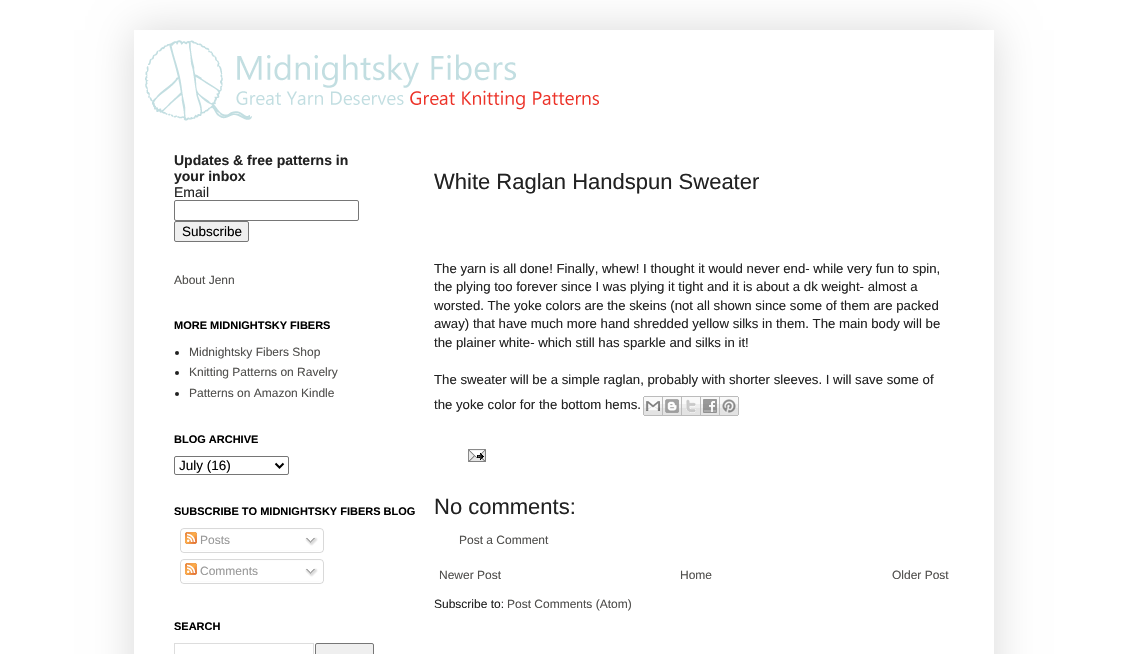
void draw(SkCanvas* c) {
SkPaint p;
p.setAntiAlias(true);
auto F=[&](const char* family, int weight, float size, bool italic = false){SkFontStyle style(weight, SkFontStyle::kNormal_Width,italic ? SkFontStyle::kItalic_Slant : SkFontStyle::kUpright_Slant);SkFont result(fontMgr->matchFamilyStyle(family, style), size);result.setSubpixel(true);return result;};
auto T=[&](const char* s, float x, float y, const SkFont& font){c->drawString(s, x, y, font, p);};
auto I=[&](const char* path, float x, float y, float w, float h){auto image = SkImages::DeferredFromEncodedData(SkData::MakeFromFileName(path));c->drawImageRect(image, SkRect::MakeXYWH(x, y, w, h), SkSamplingOptions());};
auto P=[&](const char* data, bool evenOdd = false){SkPath result = *SkParsePath::FromSVGString(data);if (evenOdd) result.setFillType(SkPathFillType::kEvenOdd);return result;};
c->clear(0xffffffff);
c->save();
c->clipPath(P("M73 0h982v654h-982zm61 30h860v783h-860z",true),true);
p.setColor(0x26000000);
p.setMaskFilter(SkMaskFilter::MakeBlur(kNormal_SkBlurStyle, 20));
c->drawRect(SkRect::MakeXYWH(134,30,860,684),p);
p.setMaskFilter(nullptr);
c->restore();
I("1.png",145,40,454,81);
auto f1 = F("Liberation Sans",700,14);
p.setColor(0xff222222);
T("Updates & free patterns in",174,165,f1);
T("your inbox",174,181,f1);
auto f2 = F("Liberation Sans",400,14);
T("Email",174,197,f2);
p.setStroke(true);
p.setStrokeWidth(1);
p.setColor(0xff767676);
c->drawRoundRect(SkRect::MakeXYWH(174.5,200.5,184,20),1.5,1.5,p);
p.setStroke(false);
p.setColor(0xffefefef);
c->drawRoundRect(SkRect::MakeXYWH(174.5,221.5,74,20),1.5,1.5,p);
p.setStroke(true);
p.setColor(0xff767676);
c->drawRoundRect(SkRect::MakeXYWH(174.5,221.5,74,20),1.5,1.5,p);
auto f3 = F("Liberation Sans",400,13.5);
p.setStroke(false);
p.setColor(0xff000000);
T("Subscribe",182,236,f3);
auto f4 = F("Liberation Sans",400,12);
p.setColor(0xff504f4d);
T("About Jenn",174,284,f4);
auto f5 = F("Liberation Sans",700,11);
p.setColor(0xff000000);
T("MORE MIDNIGHTSKY FIBERS",174,329,f5);
p.setColor(0xff222222);
c->drawCircle(177,353,2,p);
p.setColor(0xff504f4d);
T("Midnightsky Fibers Shop",189,356,f4);
p.setColor(0xff222222);
c->drawCircle(177,373,2,p);
p.setColor(0xff504f4d);
T("Knitting Patterns on Ravelry",189,376,f4);
p.setColor(0xff222222);
c->drawCircle(177,394,2,p);
p.setColor(0xff504f4d);
T("Patterns on Amazon Kindle",189,397,f4);
p.setColor(0xff000000);
T("BLOG ARCHIVE",174,443,f5);
p.setStroke(true);
p.setColor(0xff767676);
c->drawRoundRect(SkRect::MakeXYWH(174.5,456.5,114,18),1.5,1.5,p);
p.setStrokeWidth(2);
p.setColor(0xff000000);
c->drawPath(P("M275.5 463.5l4 4l4-4"),p);
p.setStroke(false);
T("July (16)",179,470,f3);
T("SUBSCRIBE TO MIDNIGHTSKY FIBERS BLOG",174,515,f5);
I("2.png",180,528,144,22);
I("3.png",185,532,12,12);
p.setColor(0xff999999);
T("Posts",200,544,f4);
I("4.png",305,537,13,9);
I("5.png",180,550,144,3);
I("2.png",180,559,144,22);
I("3.png",185,563,12,12);
T("Comments",200,575,f4);
I("4.png",305,568,13,9);
I("5.png",180,581,144,3);
p.setColor(0xff000000);
T("SEARCH",174,630,f5);
p.setStroke(true);
p.setStrokeWidth(1);
p.setColor(0xffdddddd);
c->drawRect(SkRect::MakeXYWH(174.5,643.5,139,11),p);
p.setStroke(false);
p.setColor(0xffefefef);
c->drawRoundRect(SkRect::MakeXYWH(315.5,643.5,58,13),1.5,1.5,p);
p.setStroke(true);
p.setColor(0xff767676);
c->drawRoundRect(SkRect::MakeXYWH(315.5,643.5,58,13),1.5,1.5,p);
auto f6 = F("Liberation Sans",400,22);
p.setStroke(false);
p.setColor(0xff222222);
T("White Raglan Handspun Sweater",434,189,f6);
auto f7 = F("Liberation Sans",400,13.2);
T("The yarn is all done! Finally, whew! I thought it would never end- while very fun to spin,",434,273,f7);
T("the plying too forever since I was plying it tight and it is about a dk weight- almost a",434,291,f7);
T("worsted. The yoke colors are the skeins (not all shown since some of them are packed",434,310,f7);
T("away) that have much more hand shredded yellow silks in them. The main body will be",434,328,f7);
T("the plainer white- which still has sparkle and silks in it!",434,347,f7);
T("The sweater will be a simple raglan, probably with shorter sleeves. I will save some of",434,384,f7);
T("the yoke color for the bottom hems.",434,409,f7);
I("6.png",643,396,20,20);
I("7.png",663,396,19,20);
I("8.png",682,396,19,20);
I("9.png",701,396,19,20);
I("10.png",720,396,19,20);
I("11.png",468,449,18,13);
T("No comments:",434,514,f6);
p.setColor(0xff504f4d);
T("Post a Comment",459,544,f4);
T("Newer Post",439,579,f4);
T("Home",680,579,f4);
T("Older Post",892,579,f4);
p.setColor(0xff222222);
T("Subscribe to:",434,608,f4);
p.setColor(0xff504f4d);
T("Post Comments (Atom)",507,608,f4);
}
